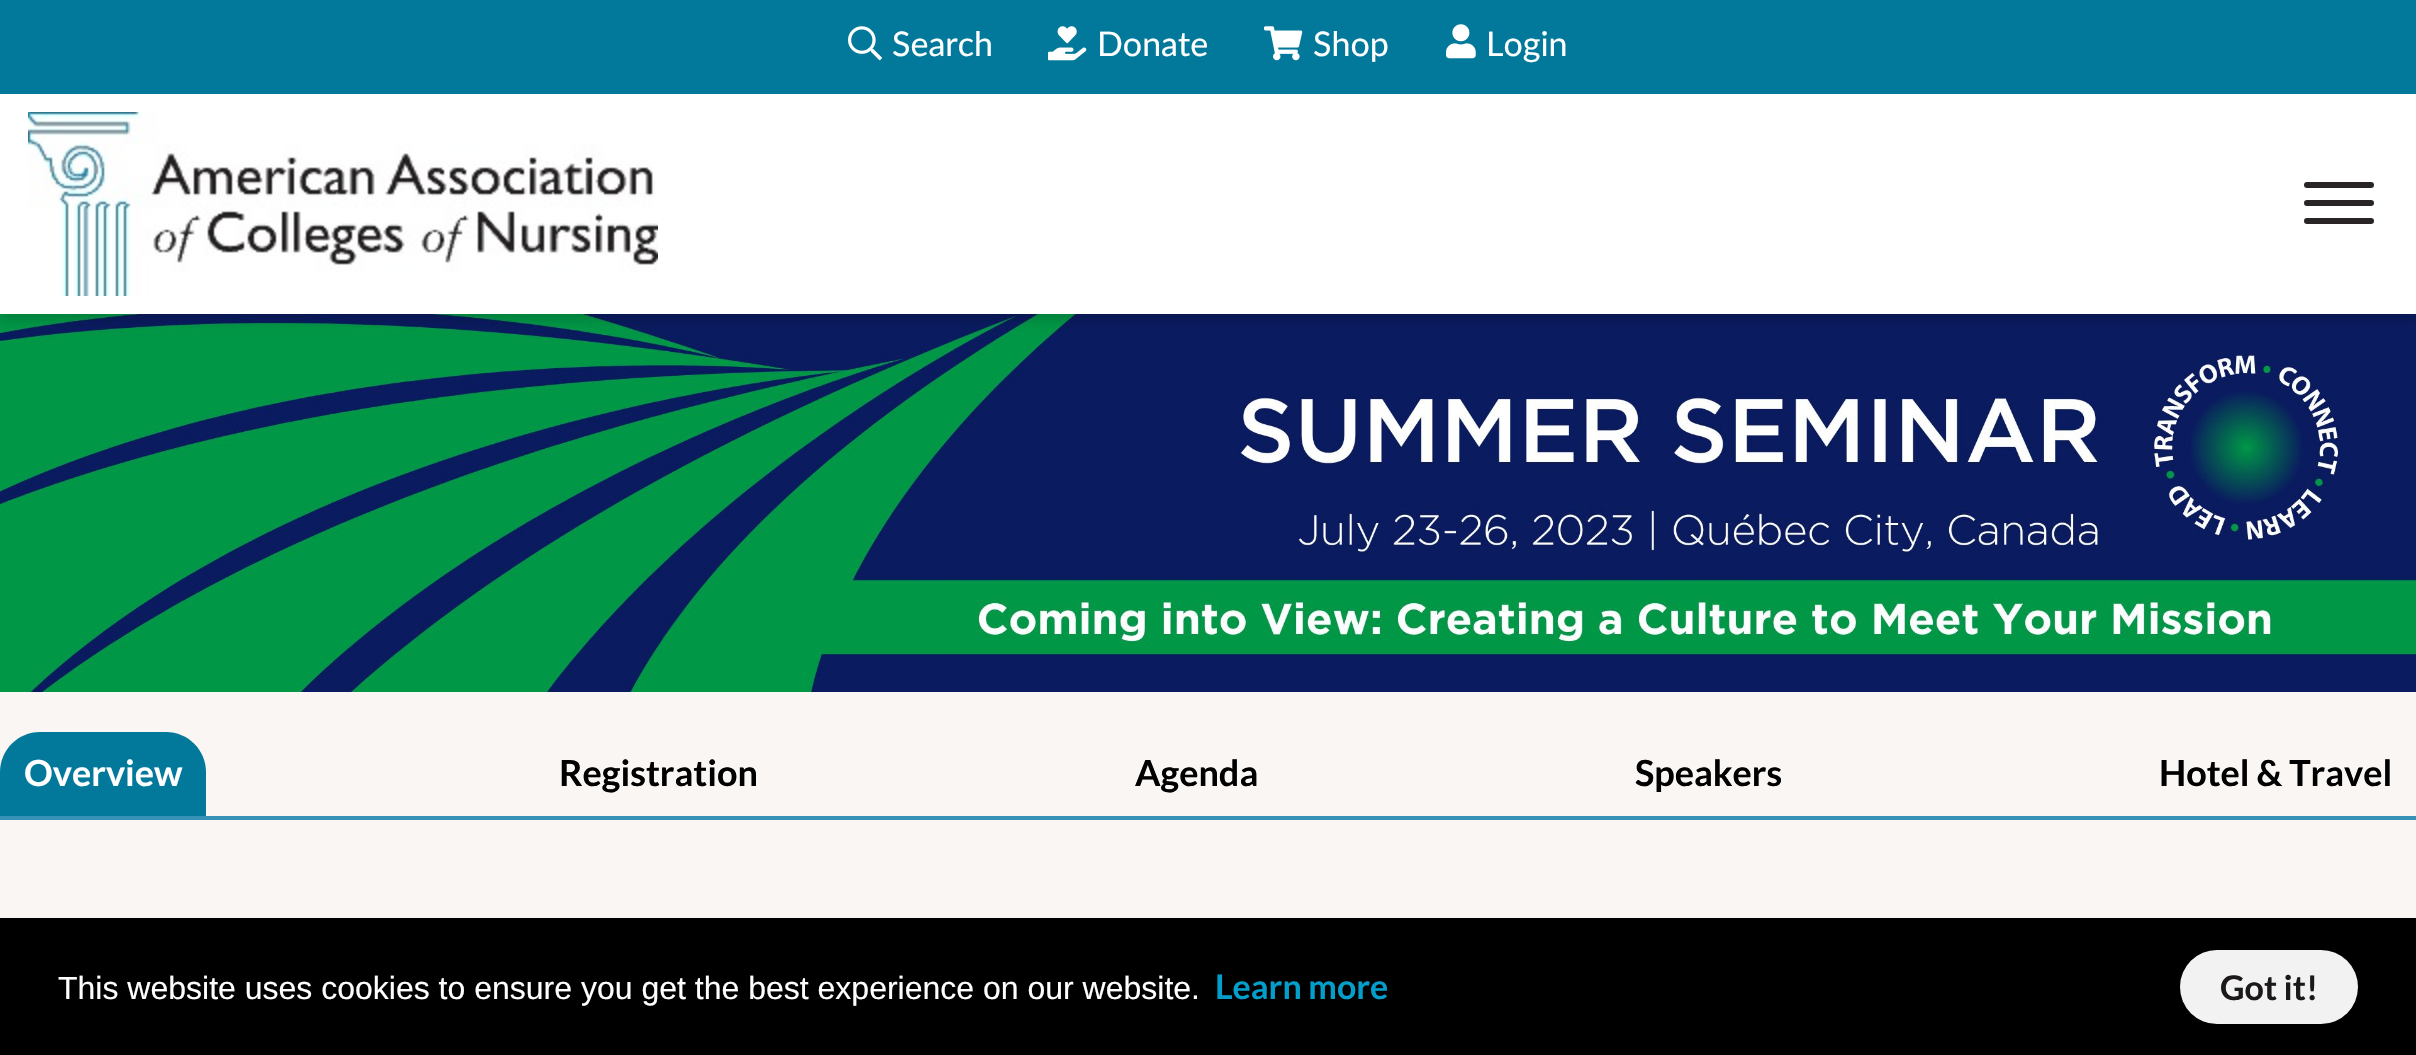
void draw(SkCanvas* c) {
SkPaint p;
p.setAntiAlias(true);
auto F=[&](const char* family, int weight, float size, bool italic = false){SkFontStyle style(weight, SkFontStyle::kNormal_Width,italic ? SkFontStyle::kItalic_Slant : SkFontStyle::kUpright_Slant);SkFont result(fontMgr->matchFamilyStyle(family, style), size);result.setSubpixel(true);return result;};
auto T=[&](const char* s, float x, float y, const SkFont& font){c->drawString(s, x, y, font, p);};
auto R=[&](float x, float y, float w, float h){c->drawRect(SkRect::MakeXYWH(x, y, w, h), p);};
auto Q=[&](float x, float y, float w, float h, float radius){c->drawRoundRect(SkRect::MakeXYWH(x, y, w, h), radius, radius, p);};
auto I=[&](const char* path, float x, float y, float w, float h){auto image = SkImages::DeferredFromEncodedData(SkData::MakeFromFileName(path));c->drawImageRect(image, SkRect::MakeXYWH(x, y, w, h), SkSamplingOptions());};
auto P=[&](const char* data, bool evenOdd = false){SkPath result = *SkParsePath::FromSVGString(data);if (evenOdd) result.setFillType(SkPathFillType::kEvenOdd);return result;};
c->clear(0xfff9f6f4);
I("6.png",0,314,2416,378);
p.setColor(0x29000000);
p.setMaskFilter(SkMaskFilter::MakeBlur(kNormal_SkBlurStyle, 6));
c->drawRect(SkRect::MakeXYWH(0,6,2416,314),p);
p.setMaskFilter(nullptr);
p.setColor(0xffffffff);
R(0,94,2416,220);
p.setColor(0xff02799a);
R(0,0,2416,94);
I("1.png",848,26,34,35);
auto f1 = F("Lato",400,34);
p.setColor(0xffffffff);
T("Search",892,56,f1);
I("2.png",1048,26,39,35);
T("Donate",1097,56,f1);
I("3.png",1264,26,39,35);
T("Shop",1313,56,f1);
I("4.png",1446,24,30,35);
T("Login",1486,56,f1);
I("5.png",28,112,630,184);
p.setColor(0xff292426);
Q(2304,200,70,6,3);
Q(2304,182,70,6,3);
Q(2304,218,70,6,3);
p.setColor(0xff3892b5);
R(0,816,2416,4);
p.setColor(0xff02799a);
c->drawPath(P("M40 732h126c22 0 40 18 40 40v44h-206v-44c0-22 18-40 40-40z"),p);
auto f2 = F("Lato",700,36);
p.setColor(0xffffffff);
T("Overview",24,786,f2);
p.setColor(0xff000000);
T("Registration",559,786,f2);
T("Agenda",1135,786,f2);
T("Speakers",1635,786,f2);
T("Hotel & Travel",2159,786,f2);
R(0,918,2416,137);
auto f3 = F("Liberation Sans",400,32);
p.setColor(0xffffffff);
T("This website uses cookies to ensure you get the best experience on our website.",58,999,f3);
auto f4 = F("Lato",700,34);
p.setColor(0xff039ec9);
T("Learn more",1215,999,f4);
p.setColor(0xfff2f2f2);
Q(2180,950,178,74,37);
p.setColor(0xff1c191a);
T("Got it!",2220,1000,f4);
}
